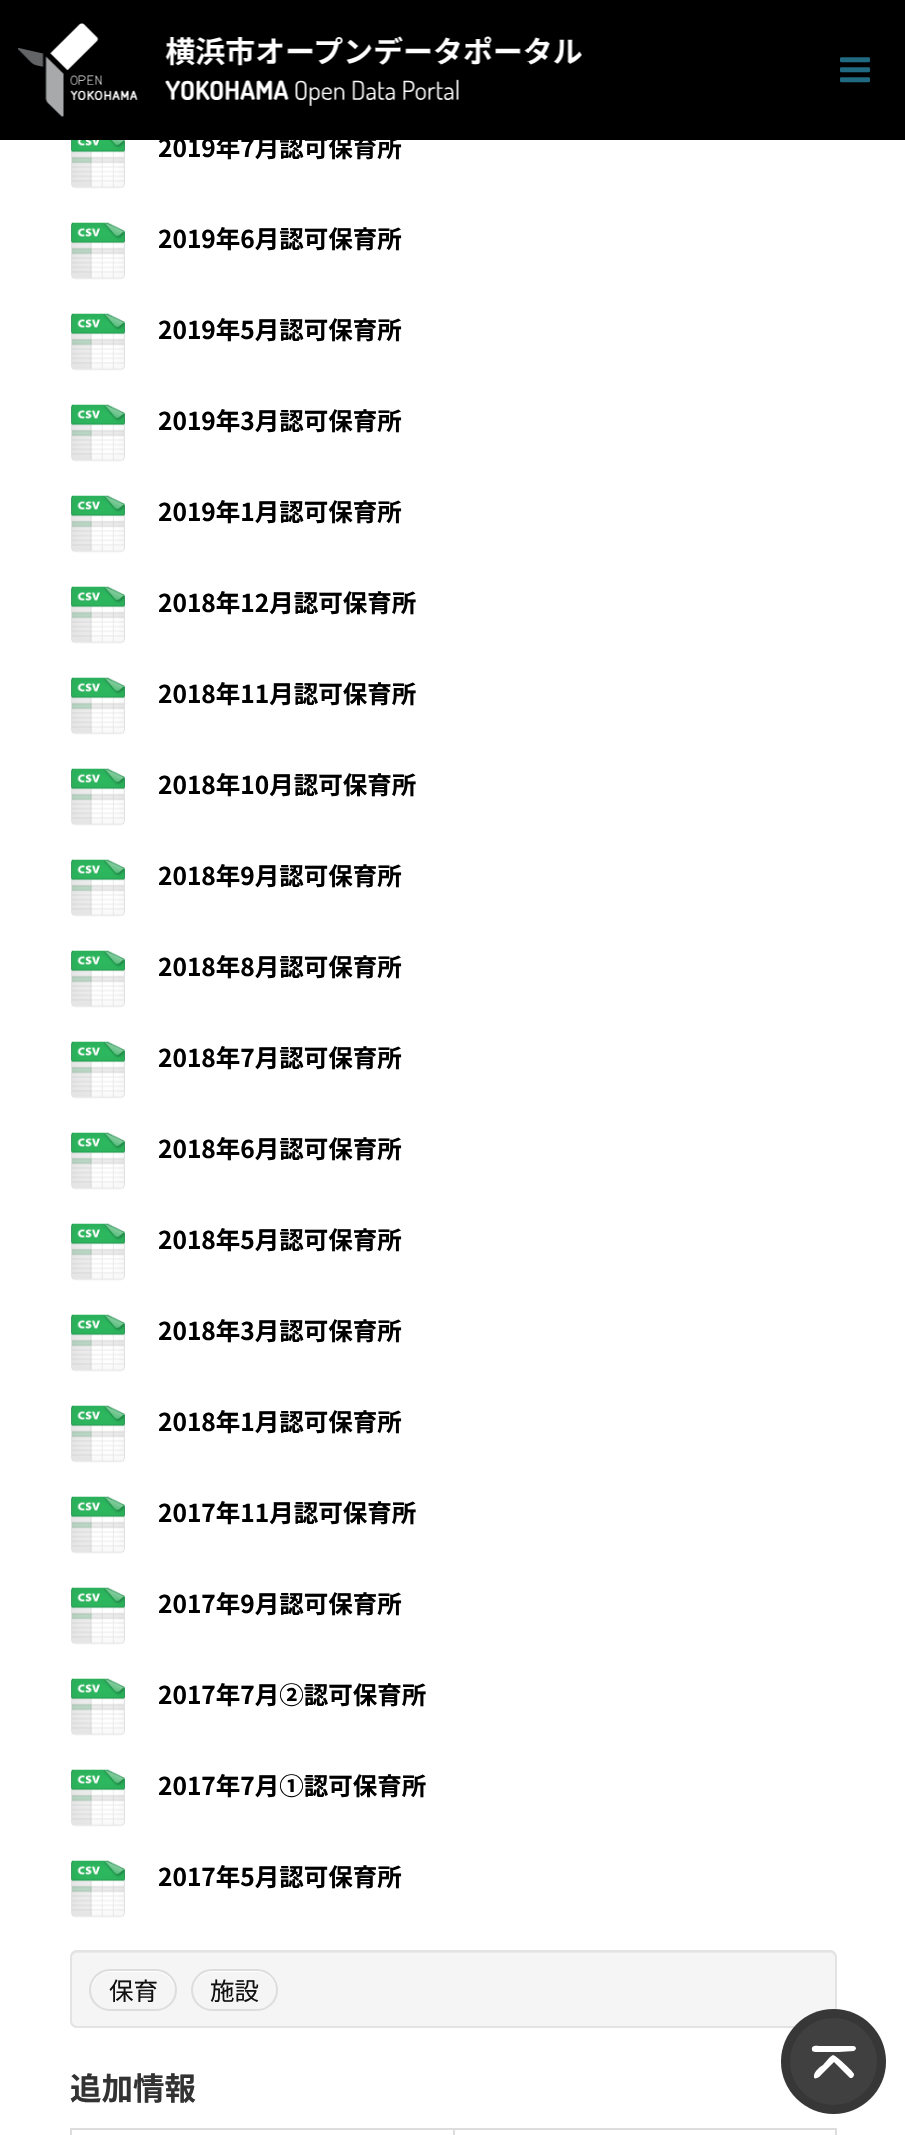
void draw(SkCanvas* c) {
SkPaint p;
p.setAntiAlias(true);
auto F=[&](const char* family, int weight, float size, bool italic = false){SkFontStyle style(weight, SkFontStyle::kNormal_Width,italic ? SkFontStyle::kItalic_Slant : SkFontStyle::kUpright_Slant);SkFont result(fontMgr->matchFamilyStyle(family, style), size);result.setSubpixel(true);return result;};
auto T=[&](const char* s, float x, float y, const SkFont& font){c->drawString(s, x, y, font, p);};
auto R=[&](float x, float y, float w, float h){c->drawRect(SkRect::MakeXYWH(x, y, w, h), p);};
auto Q=[&](float x, float y, float w, float h, float radius){c->drawRoundRect(SkRect::MakeXYWH(x, y, w, h), radius, radius, p);};
auto I=[&](const char* path, float x, float y, float w, float h){auto image = SkImages::DeferredFromEncodedData(SkData::MakeFromFileName(path));c->drawImageRect(image, SkRect::MakeXYWH(x, y, w, h), SkSamplingOptions());};
auto P=[&](const char* data, bool evenOdd = false){SkPath result = *SkParsePath::FromSVGString(data);if (evenOdd) result.setFillType(SkPathFillType::kEvenOdd);return result;};
c->clear(0xffffffff);
p.setColor(0xff000000);
R(0,0,905,140);
I("1.png",18,23,564,94);
I("2.png",840,57,30,26);
I("3.png",71,140,54,49);
auto f1 = F("Noto Sans JP",700,24.5);
T("2019年7月認可保育所",158,157,f1);
I("4.png",71,222,54,58);
T("2019年6月認可保育所",158,248,f1);
I("4.png",71,313,54,58);
T("2019年5月認可保育所",158,339,f1);
I("4.png",71,404,54,58);
T("2019年3月認可保育所",158,430,f1);
I("4.png",71,495,54,58);
T("2019年1月認可保育所",158,521,f1);
I("4.png",71,586,54,58);
T("2018年12月認可保育所",158,612,f1);
I("4.png",71,677,54,58);
T("2018年11月認可保育所",158,703,f1);
I("4.png",71,768,54,58);
T("2018年10月認可保育所",158,794,f1);
I("4.png",71,859,54,58);
T("2018年9月認可保育所",158,885,f1);
I("4.png",71,950,54,58);
T("2018年8月認可保育所",158,976,f1);
I("4.png",71,1041,54,58);
T("2018年7月認可保育所",158,1067,f1);
I("4.png",71,1132,54,58);
T("2018年6月認可保育所",158,1158,f1);
I("4.png",71,1223,54,58);
T("2018年5月認可保育所",158,1249,f1);
I("4.png",71,1314,54,58);
T("2018年3月認可保育所",158,1340,f1);
I("4.png",71,1405,54,58);
T("2018年1月認可保育所",158,1431,f1);
I("4.png",71,1496,54,58);
T("2017年11月認可保育所",158,1522,f1);
I("4.png",71,1587,54,58);
T("2017年9月認可保育所",158,1613,f1);
I("4.png",71,1678,54,58);
T("2017年7月②認可保育所",158,1704,f1);
I("4.png",71,1769,54,58);
T("2017年7月①認可保育所",158,1795,f1);
I("4.png",71,1860,54,58);
T("2017年5月認可保育所",158,1886,f1);
p.setColor(0xfff5f5f5);
Q(70,1950,767,78,7);
p.setColor(0xffe9e9e9);
c->drawPath(P("M77 1953h753c2 0 5 2 5 5c0-3-1-7-5-7h-753c-4 0-5 4-5 7c0-3 2-5 5-5z"),p);
p.setStroke(true);
p.setStrokeWidth(2);
p.setColor(0xffe3e3e3);
c->drawRoundRect(SkRect::MakeXYWH(71,1951,765,76),6,6,p);
p.setStroke(false);
p.setColor(0xffffffff);
c->drawPath(P("M110 1972h46c10 0 18 8 19 19v-1c0-10-9-19-19-19h-46c-10 0-19 9-19 19v1c1-11 9-19 19-19z"),p);
p.setStroke(true);
p.setColor(0xffdddddd);
c->drawRoundRect(SkRect::MakeXYWH(90,1970,86,40),20,20,p);
auto f2 = F("Noto Sans JP",400,24.5);
p.setStroke(false);
p.setColor(0xff111111);
T("保育",109,2000,f2);
p.setColor(0xffffffff);
c->drawPath(P("M212 1972h45c11 0 19 9 19 20c0 3-1 5-2 8c2-3 3-7 3-10c0-10-9-19-19-19h-46c-7 0-14 4-17 10c4-5 10-9 17-9z"),p);
p.setStroke(true);
p.setColor(0xffdddddd);
c->drawRoundRect(SkRect::MakeXYWH(192,1970,85,40),20,20,p);
p.setStroke(false);
p.setColor(0xff111111);
T("施設",210,2000,f2);
auto f3 = F("Noto Sans JP",700,31.5);
p.setColor(0xff333333);
T("追加情報",70,2100,f3);
p.setColor(0xffdddddd);
R(70,2128,767,2);
R(835,2128,2,7);
R(70,2128,2,7);
R(453,2128,2,7);
p.setColor(0xff404040);
c->drawCircle(833.5,2061.5,52.5,p);
p.setStroke(true);
p.setStrokeWidth(9);
p.setColor(0x26000000);
c->drawCircle(833.5,2061.5,48,p);
p.setStroke(false);
p.setColor(0xffffffff);
c->drawPath(P("M853 2046c2 0 3 1 3 3l-2 2l-15 1h-21c-2 0-6 0-6-2c-1-6 6-4 9-4zm0 31l-1 1h-2l-16-16l-13 13c-1 2-8 6-7 1c0-4 4-7 6-9l3-2c2-2 7-9 10-10l2 1c2 1 18 15 19 18c0 1 0 2-1 3z",true),p);
}
